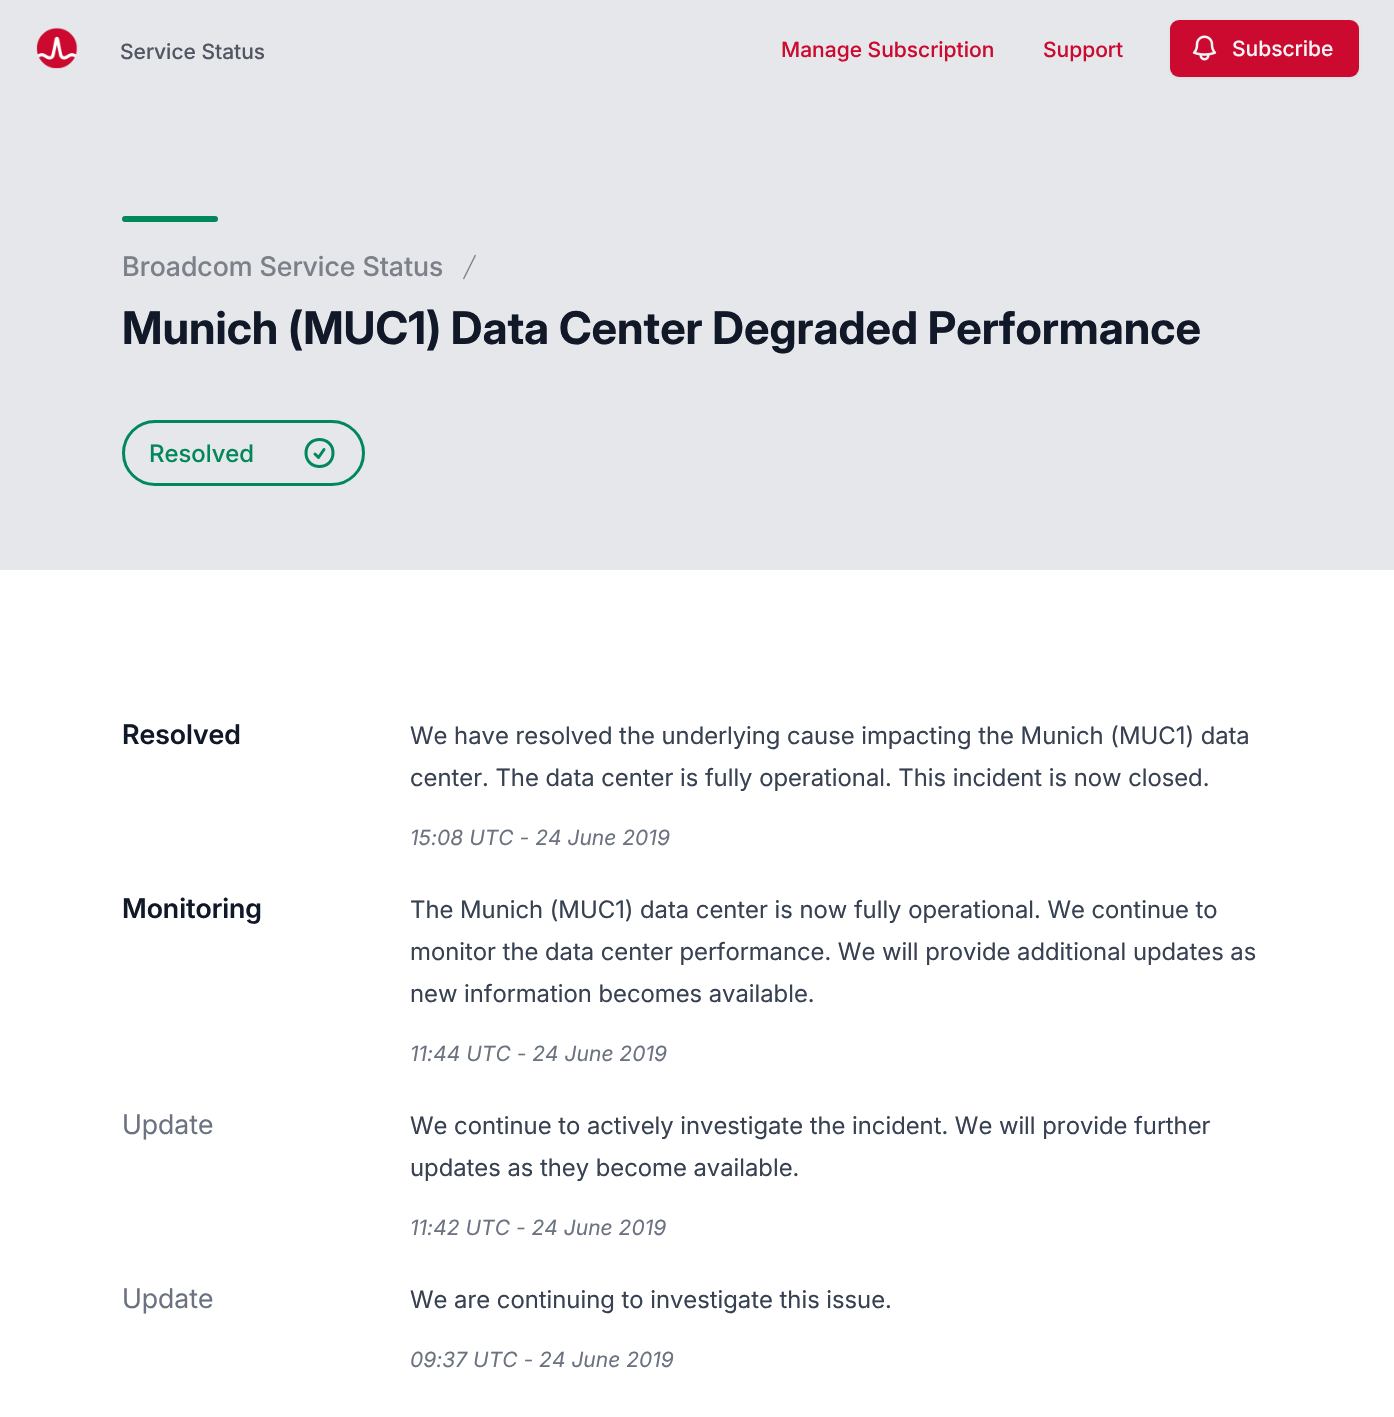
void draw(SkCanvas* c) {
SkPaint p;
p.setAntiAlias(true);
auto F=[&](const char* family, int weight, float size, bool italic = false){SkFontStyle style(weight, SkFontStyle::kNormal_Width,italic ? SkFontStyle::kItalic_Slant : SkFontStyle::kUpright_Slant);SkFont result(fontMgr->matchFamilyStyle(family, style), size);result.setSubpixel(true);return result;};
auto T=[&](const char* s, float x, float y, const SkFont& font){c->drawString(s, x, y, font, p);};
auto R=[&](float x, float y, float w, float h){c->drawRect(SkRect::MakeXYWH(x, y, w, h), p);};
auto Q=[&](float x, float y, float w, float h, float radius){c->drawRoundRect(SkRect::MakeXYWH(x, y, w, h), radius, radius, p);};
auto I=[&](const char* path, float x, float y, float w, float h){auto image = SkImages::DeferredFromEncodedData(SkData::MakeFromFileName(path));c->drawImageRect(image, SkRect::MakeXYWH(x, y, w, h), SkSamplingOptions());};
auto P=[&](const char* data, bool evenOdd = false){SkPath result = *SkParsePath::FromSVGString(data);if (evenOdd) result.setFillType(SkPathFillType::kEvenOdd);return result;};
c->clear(0xffffffff);
p.setColor(0xffe5e7eb);
R(0,0,1394,570);
I("1.png",36,27,42,42);
auto f1 = F("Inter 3",500,21);
p.setColor(0xff515662);
T("Service Status",120,59,f1);
p.setColor(0xffcc092f);
T("Manage Subscription",781,57,f1);
T("Support",1043,57,f1);
p.setColor(0x0d000000);
p.setMaskFilter(SkMaskFilter::MakeBlur(kNormal_SkBlurStyle, 1.5));
c->drawRoundRect(SkRect::MakeXYWH(1170,21,189,57),9,9,p);
p.setMaskFilter(nullptr);
p.setColor(0xffcc092f);
Q(1170,20,189,57,9);
I("2.png",1192,35,25,26);
p.setColor(0xfff3f4f6);
T("Subscribe",1232,56,f1);
p.setColor(0xff00875a);
Q(122,216,96,6,3);
auto f2 = F("Inter",500,27);
p.setColor(0xff7b8089);
T("Broadcom Service Status",122,276,f2);
c->drawPath(P("M463 278.5l12-24l1 1l-12 24z"),p);
auto f3 = F("Inter",700,45);
p.setColor(0xff111827);
T("Munich (MUC1) Data Center Degraded Performance",122,344,f3);
p.setStroke(true);
p.setStrokeWidth(3);
p.setColor(0xff00875a);
c->drawRoundRect(SkRect::MakeXYWH(123.5,421.5,240,63),31.5,31.5,p);
auto f4 = F("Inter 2",500,24);
p.setStroke(false);
T("Resolved",149,462,f4);
p.setStroke(true);
p.setStrokeCap(SkPaint::kRound_Cap);
p.setStrokeJoin(SkPaint::kRound_Join);
c->drawPath(P("M315 454l3.5 3.5l5.5-8m9 3.5c0 18-27 18-27 0c0-18 27-18 27 0z"),p);
auto f5 = F("Inter",600,27);
p.setStroke(false);
p.setColor(0xff111827);
T("Resolved",122,744,f5);
auto f6 = F("Inter",400,24);
p.setColor(0xff374151);
T("We have resolved the underlying cause impacting the Munich (MUC1) data",410,744,f6);
T("center. The data center is fully operational. This incident is now closed.",410,786,f6);
auto f7 = F("Inter",400,21,true);
p.setColor(0xff6b7280);
T("15:08 UTC - 24 June 2019",410,845,f7);
p.setColor(0xff111827);
T("Monitoring",122,918,f5);
p.setColor(0xff374151);
T("The Munich (MUC1) data center is now fully operational. We continue to",410,918,f6);
T("monitor the data center performance. We will provide additional updates as",410,960,f6);
T("new information becomes available.",410,1002,f6);
p.setColor(0xff6b7280);
T("11:44 UTC - 24 June 2019",410,1061,f7);
auto f8 = F("Inter 2",400,27);
T("Update",122,1134,f8);
p.setColor(0xff374151);
T("We continue to actively investigate the incident. We will provide further",410,1134,f6);
T("updates as they become available.",410,1176,f6);
p.setColor(0xff6b7280);
T("11:42 UTC - 24 June 2019",410,1235,f7);
T("Update",122,1308,f8);
p.setColor(0xff374151);
T("We are continuing to investigate this issue.",410,1308,f6);
p.setColor(0xff6b7280);
T("09:37 UTC - 24 June 2019",410,1367,f7);
}
